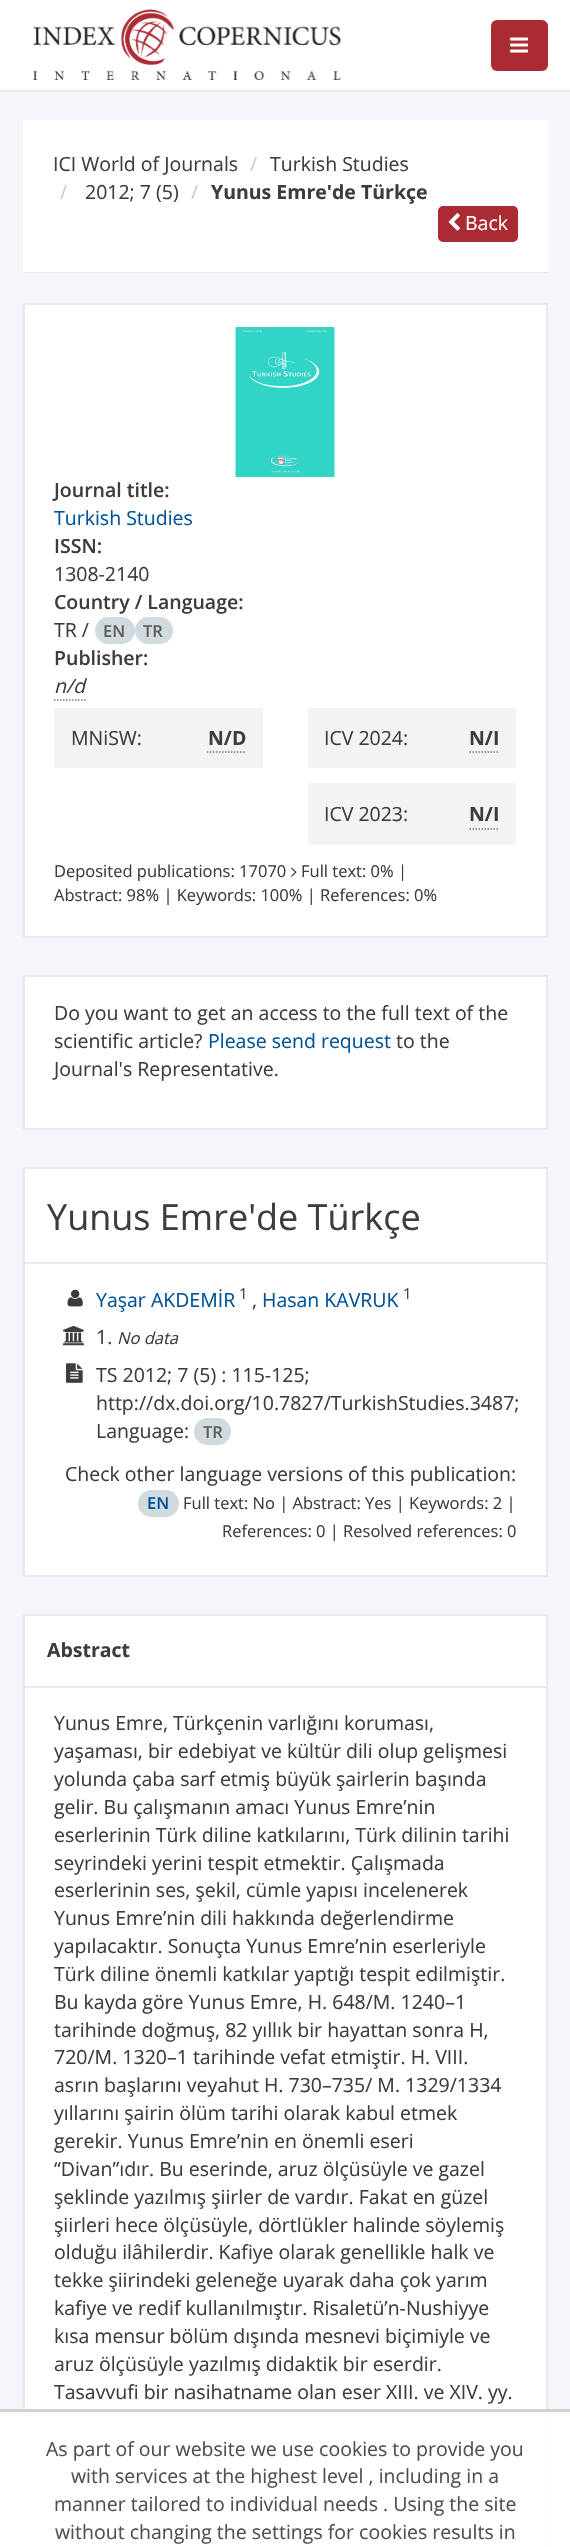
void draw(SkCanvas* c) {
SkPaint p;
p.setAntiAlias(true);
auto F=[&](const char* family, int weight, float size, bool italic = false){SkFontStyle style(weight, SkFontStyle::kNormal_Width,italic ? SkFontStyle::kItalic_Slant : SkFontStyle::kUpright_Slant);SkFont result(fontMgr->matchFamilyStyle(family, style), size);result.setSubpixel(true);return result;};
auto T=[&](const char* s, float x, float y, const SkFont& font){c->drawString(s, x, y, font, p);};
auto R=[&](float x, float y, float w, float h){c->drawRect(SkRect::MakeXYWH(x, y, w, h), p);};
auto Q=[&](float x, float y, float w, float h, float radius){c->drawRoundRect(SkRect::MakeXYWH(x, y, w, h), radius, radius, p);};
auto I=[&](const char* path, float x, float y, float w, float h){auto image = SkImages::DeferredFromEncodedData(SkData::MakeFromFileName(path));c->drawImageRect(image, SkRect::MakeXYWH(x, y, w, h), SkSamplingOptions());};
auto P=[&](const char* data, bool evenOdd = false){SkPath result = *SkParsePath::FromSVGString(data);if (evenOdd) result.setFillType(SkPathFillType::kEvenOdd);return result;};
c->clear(0xfff4f6fa);
p.setColor(0xffffffff);
R(0,0,570,90);
p.setColor(0xffe7eaec);
R(0,90,570,2);
I("1.png",33,9,308,72);
p.setColor(0xffaa2b31);
Q(491,20,57,51,6);
I("2.png",510,37,18,16);
p.setColor(0xffffffff);
R(23,120,525,152);
p.setColor(0xffe7eaec);
R(23,272,525,1);
auto f1 = F("Open Sans",400,19.5);
p.setColor(0xff3d3d3d);
T("ICI World of Journals",53,171,f1);
p.setColor(0xffcccccc);
T("/",250,171,f1);
p.setColor(0xff3d3d3d);
T("Turkish Studies",270,171,f1);
p.setColor(0xffcccccc);
T("/",60,199,f1);
p.setColor(0xff3d3d3d);
T("2012; 7 (5)",85,199,f1);
p.setColor(0xffcccccc);
T("/",191,199,f1);
auto f2 = F("Open Sans",700,19.5);
p.setColor(0xff3d3d3d);
T("Yunus Emre'de Türkçe",211,199,f2);
p.setColor(0xffaa2b31);
c->drawRoundRect(SkRect::MakeXYWH(439,207,78,34),4,4,p);
p.setStroke(true);
p.setStrokeWidth(2);
c->drawRoundRect(SkRect::MakeXYWH(439,207,78,34),4,4,p);
I("3.png",448,213,12,18);
p.setStroke(false);
p.setColor(0xffffffff);
T("Back",465,230,f1);
c->drawRect(SkRect::MakeXYWH(24,304,523,633),p);
p.setStroke(true);
p.setColor(0xffe7eaec);
c->drawRect(SkRect::MakeXYWH(24,304,523,633),p);
I("4.png",235,327,100,150);
auto f3 = F("Open Sans",600,19.5);
p.setStroke(false);
p.setColor(0xff3d3d3d);
T("Journal title:",54,497,f3);
p.setColor(0xff00539b);
T("Turkish Studies",54,525,f1);
p.setColor(0xff3d3d3d);
T("ISSN:",54,553,f3);
T("1308-2140",54,581,f1);
T("Country / Language:",54,609,f3);
T("TR /",54,637,f1);
p.setColor(0xffd1dade);
Q(95,617,40,27,13.5);
auto f4 = F("Open Sans",600,16.5);
p.setColor(0xff5e5e5e);
T("EN",103,637,f4);
p.setColor(0xffd1dade);
Q(135,617,38,27,13.5);
p.setColor(0xff5e5e5e);
T("TR",143,637,f4);
p.setColor(0xff3d3d3d);
T("Publisher:",54,665,f3);
auto f5 = F("Open Sans",400,19.5,true);
T("n/d",54,693,f5);
p.setStroke(true);
p.setStrokeWidth(1.5);
p.setColor(0xff777777);
p.setPathEffect(SkDashPathEffect::Make({{1.5f,1.5f}}, 0));
c->drawPath(P("M54 700h31.5"),p);
p.setPathEffect(nullptr);
p.setStroke(false);
p.setColor(0xfff3f3f4);
R(54,708,209,60);
p.setColor(0xff3d3d3d);
T("MNiSW:",71,745,f1);
p.setStroke(true);
p.setColor(0xff777777);
p.setPathEffect(SkDashPathEffect::Make({{1.5f,1.5f}}, 0));
c->drawPath(P("M207 752h39"),p);
p.setPathEffect(nullptr);
p.setStroke(false);
p.setColor(0xff3d3d3d);
T("N/D",208,745,f2);
p.setColor(0xfff3f3f4);
R(308,708,208,60);
p.setColor(0xff3d3d3d);
T("ICV 2024:",324,745,f1);
p.setStroke(true);
p.setColor(0xff777777);
p.setPathEffect(SkDashPathEffect::Make({{1.5f,1.5f}}, 0));
c->drawPath(P("M469.5 752h30"),p);
p.setPathEffect(nullptr);
p.setStroke(false);
p.setColor(0xff3d3d3d);
T("N/I",469,745,f2);
p.setColor(0xfff3f3f4);
R(308,783,208,62);
p.setColor(0xff3d3d3d);
T("ICV 2023:",324,821,f1);
p.setStroke(true);
p.setColor(0xff777777);
p.setPathEffect(SkDashPathEffect::Make({{1.5f,1.5f}}, 0));
c->drawPath(P("M469.5 829h30"),p);
p.setPathEffect(nullptr);
p.setStroke(false);
p.setColor(0xff3d3d3d);
T("N/I",469,821,f2);
auto f6 = F("Open Sans",400,16.5);
T("Deposited publications: 17070",54,877,f6);
I("5.png",291,867,6,10);
T("Full text: 0% |",301,877,f6);
T("Abstract: 98% | Keywords: 100% | References: 0%",54,901,f6);
p.setColor(0xffffffff);
c->drawRect(SkRect::MakeXYWH(24,976,523,153),p);
p.setStroke(true);
p.setStrokeWidth(2);
p.setColor(0xffe7eaec);
c->drawRect(SkRect::MakeXYWH(24,976,523,153),p);
p.setStroke(false);
p.setColor(0xff3d3d3d);
T("Do you want to get an access to the full text of the",54,1020,f1);
T("scientific article?",54,1048,f1);
p.setColor(0xff00539b);
T("Please send request",208,1048,f1);
p.setColor(0xff3d3d3d);
T("to the",396,1048,f1);
T("Journal's Representative.",54,1076,f1);
p.setColor(0xffffffff);
R(25,1169,521,93);
p.setColor(0xffe7eaec);
R(23,1167,525,2);
R(546,1167,2,95);
R(23,1167,2,95);
auto f7 = F("Open Sans",400,36);
p.setColor(0xff3d3d3d);
T("Yunus Emre'de Türkçe",47,1230,f7);
p.setColor(0xffffffff);
c->drawRect(SkRect::MakeXYWH(24,1263,523,313),p);
p.setStroke(true);
p.setColor(0xffe7eaec);
c->drawRect(SkRect::MakeXYWH(24,1263,523,313),p);
I("6.png",67,1289,16,18);
p.setStroke(false);
p.setColor(0xff00539b);
T("Yaşar AKDEMİR",96,1307,f1);
auto f8 = F("Open Sans",400,15);
p.setColor(0xff3d3d3d);
T("1",239,1299,f8);
T(",",252,1307,f1);
p.setColor(0xff00539b);
T("Hasan KAVRUK",262,1307,f1);
p.setColor(0xff3d3d3d);
T("1",403,1299,f8);
I("7.png",63,1325,21,21);
T("1.",96,1344,f1);
auto f9 = F("Open Sans",400,16.5,true);
T("No data",117,1344,f9);
I("8.png",66,1363,17,20);
T("TS 2012; 7 (5) : 115-125;",96,1382,f1);
T("http://dx.doi.org/10.7827/TurkishStudies.3487;",96,1410,f1);
T("Language:",96,1438,f1);
p.setColor(0xffd1dade);
Q(194,1418,37,27,13.5);
p.setColor(0xff5e5e5e);
T("TR",203,1438,f4);
p.setColor(0xff3d3d3d);
T("Check other language versions of this publication:",65,1481,f1);
p.setColor(0xffd1dade);
Q(138,1490,41,27,13.5);
p.setColor(0xff00539b);
T("EN",147,1509,f4);
p.setColor(0xff3d3d3d);
T("Full text: No | Abstract: Yes | Keywords: 2 |",183,1509,f6);
T("References: 0 | Resolved references: 0",222,1537,f6);
p.setColor(0xffffffff);
R(25,1616,521,70);
p.setColor(0xffe7eaec);
R(23,1614,525,2);
R(546,1614,2,72);
R(23,1614,2,72);
p.setColor(0xff3d3d3d);
T("Abstract",47,1657,f2);
p.setColor(0xffffffff);
c->drawRect(SkRect::MakeXYWH(24,1687,523,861),p);
p.setStroke(true);
p.setColor(0xffe7eaec);
c->drawRect(SkRect::MakeXYWH(24,1687,523,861),p);
p.setStroke(false);
p.setColor(0xff3d3d3d);
T("Yunus Emre, Türkçenin varlığını koruması,",54,1730,f1);
T("yaşaması, bir edebiyat ve kültür dili olup gelişmesi",54,1758,f1);
T("yolunda çaba sarf etmiş büyük şairlerin başında",54,1786,f1);
T("gelir. Bu çalışmanın amacı Yunus Emre’nin",54,1814,f1);
T("eserlerinin Türk diline katkılarını, Türk dilinin tarihi",54,1842,f1);
T("seyrindeki yerini tespit etmektir. Çalışmada",54,1870,f1);
T("eserlerinin ses, şekil, cümle yapısı incelenerek",54,1897,f1);
T("Yunus Emre’nin dili hakkında değerlendirme",54,1925,f1);
T("yapılacaktır. Sonuçta Yunus Emre’nin eserleriyle",54,1953,f1);
T("Türk diline önemli katkılar yaptığı tespit edilmiştir.",54,1981,f1);
T("Bu kayda göre Yunus Emre, H. 648/M. 1240–1",54,2009,f1);
T("tarihinde doğmuş, 82 yıllık bir hayattan sonra H,",54,2037,f1);
T("720/M. 1320–1 tarihinde vefat etmiştir. H. VIII.",54,2064,f1);
T("asrın başlarını veyahut H. 730–735/ M. 1329/1334",54,2092,f1);
T("yıllarını şairin ölüm tarihi olarak kabul etmek",54,2120,f1);
T("gerekir. Yunus Emre’nin en önemli eseri",54,2148,f1);
T("“Divan”ıdır. Bu eserinde, aruz ölçüsüyle ve gazel",54,2176,f1);
T("şeklinde yazılmış şiirler de vardır. Fakat en güzel",54,2204,f1);
T("şiirleri hece ölçüsüyle, dörtlükler halinde söylemiş",54,2232,f1);
T("olduğu ilâhilerdir. Kafiye olarak genellikle halk ve",54,2259,f1);
T("tekke şiirindeki geleneğe uyarak daha çok yarım",54,2287,f1);
T("kafiye ve redif kullanılmıştır. Risaletü’n-Nushiyye",54,2315,f1);
T("kısa mensur bölüm dışında mesnevi biçimiyle ve",54,2343,f1);
T("aruz ölçüsüyle yazılmış didaktik bir eserdir.",54,2371,f1);
T("Tasavvufi bir nasihatname olan eser XIII. ve XIV. yy.",54,2399,f1);
p.setColor(0xe6ffffff);
R(0,2409,570,138);
p.setColor(0xe6cccccc);
R(0,2409,570,3);
p.setColor(0xff505050);
T("As part of our website we use cookies to provide you",46,2456,f1);
T("with services at the highest level , including in a",71,2483,f1);
T("manner tailored to individual needs . Using the site",54,2511,f1);
T("without changing the settings for cookies results in",55,2539,f1);
}
